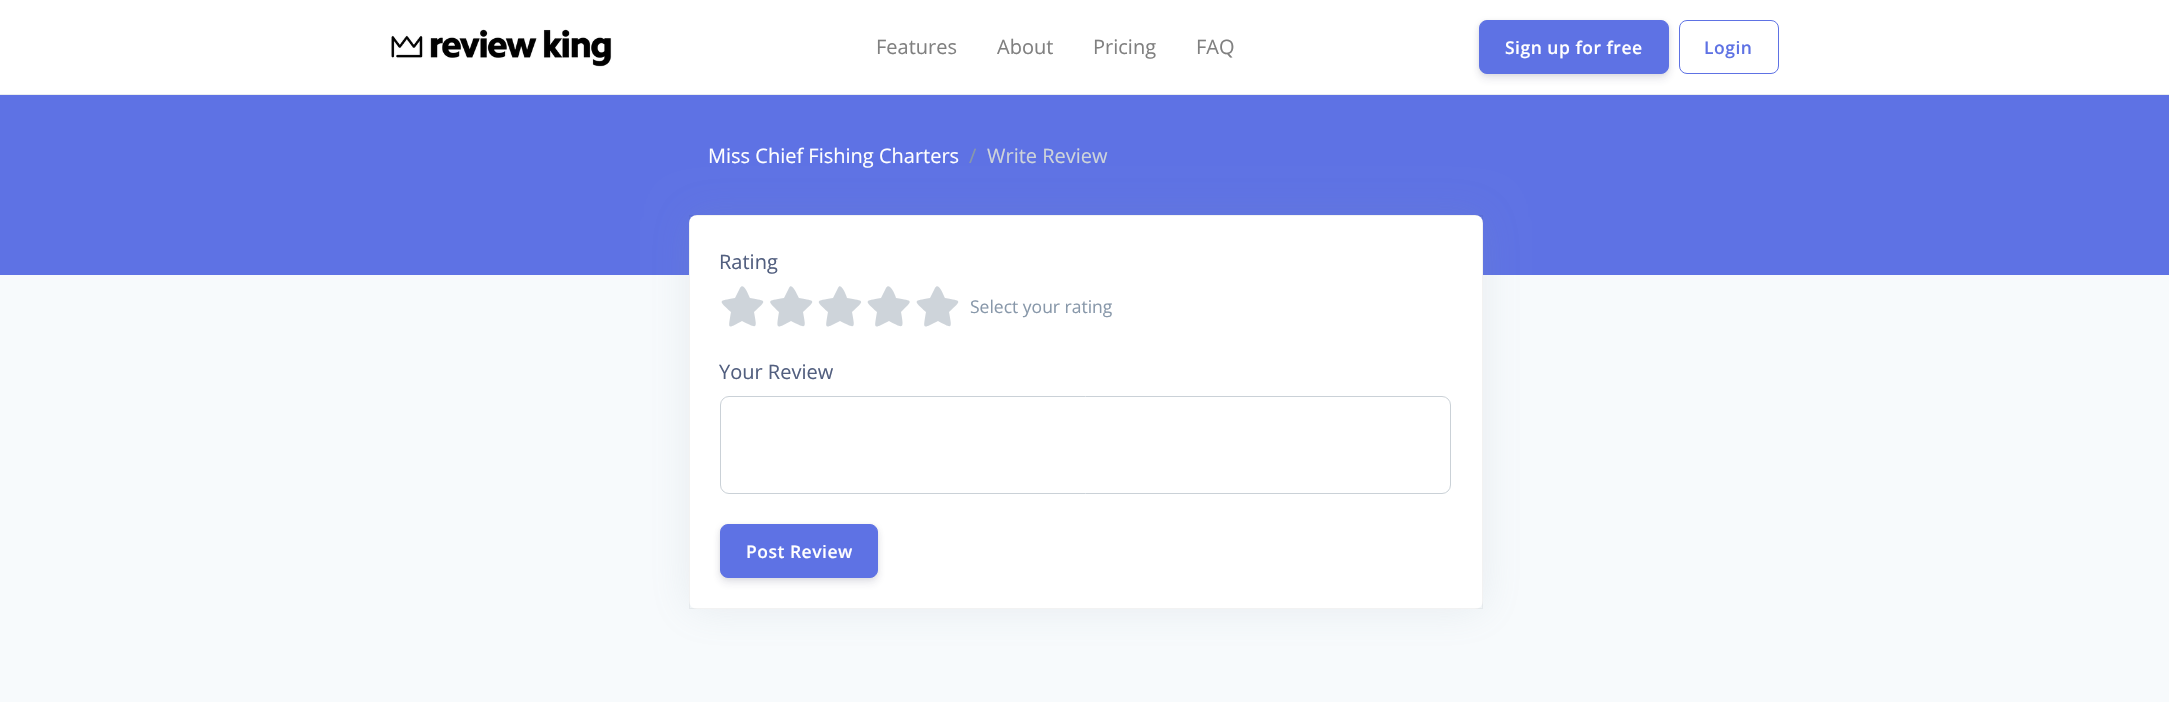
void draw(SkCanvas* c) {
SkPaint p;
p.setAntiAlias(true);
auto F=[&](const char* family, int weight, float size, bool italic = false){SkFontStyle style(weight, SkFontStyle::kNormal_Width,italic ? SkFontStyle::kItalic_Slant : SkFontStyle::kUpright_Slant);SkFont result(fontMgr->matchFamilyStyle(family, style), size);result.setSubpixel(true);return result;};
auto T=[&](const char* s, float x, float y, const SkFont& font){c->drawString(s, x, y, font, p);};
auto L=[&](const char* s, float x, float y, const SkFont& font, const SkPaint& ink, float letter, float word){std::vector<SkGlyphID> glyphs(font.countText(s, strlen(s), SkTextEncoding::kUTF8));std::vector<float> xs(glyphs.size());font.textToGlyphs(s, strlen(s), SkTextEncoding::kUTF8, glyphs);font.getXPos(glyphs, xs, x);float extra = 0;for (size_t i = 0; i < glyphs.size(); i++) {xs[i] += extra;extra += letter + word * (glyphs[i] == font.unicharToGlyph(' '));}c->drawTextBlob(SkTextBlob::MakeFromPosHGlyphs(glyphs, xs, y, font), 0, 0, ink);};
auto R=[&](float x, float y, float w, float h){c->drawRect(SkRect::MakeXYWH(x, y, w, h), p);};
auto Q=[&](float x, float y, float w, float h, float radius){c->drawRoundRect(SkRect::MakeXYWH(x, y, w, h), radius, radius, p);};
auto I=[&](const char* path, float x, float y, float w, float h){auto image = SkImages::DeferredFromEncodedData(SkData::MakeFromFileName(path));c->drawImageRect(image, SkRect::MakeXYWH(x, y, w, h), SkSamplingOptions());};
auto P=[&](const char* data, bool evenOdd = false){SkPath result = *SkParsePath::FromSVGString(data);if (evenOdd) result.setFillType(SkPathFillType::kEvenOdd);return result;};
c->clear(0xfff7fafc);
p.setColor(0xffffffff);
R(0,0,2169,94);
p.setColor(0xffe9ecef);
R(0,94,2169,1);
I("1.png",391,29,221,38);
auto f1 = F("Open Sans",400,20);
p.setColor(0xff808080);
T("Features",876,54,f1);
T("About",997,54,f1);
T("Pricing",1093,54,f1);
T("FAQ",1196,54,f1);
p.setColor(0x14000000);
p.setMaskFilter(SkMaskFilter::MakeBlur(kNormal_SkBlurStyle, 2));
c->drawRoundRect(SkRect::MakeXYWH(1479,21,190,54),8,8,p);
p.setMaskFilter(nullptr);
p.setColor(0x1c32325d);
p.setMaskFilter(SkMaskFilter::MakeBlur(kNormal_SkBlurStyle, 4));
c->drawRoundRect(SkRect::MakeXYWH(1479,25,190,54),8,8,p);
p.setMaskFilter(nullptr);
p.setColor(0xff5e72e4);
c->drawRoundRect(SkRect::MakeXYWH(1479.5,20.5,189,53),7.5,7.5,p);
p.setStroke(true);
p.setStrokeWidth(1);
c->drawRoundRect(SkRect::MakeXYWH(1479.5,20.5,189,53),7.5,7.5,p);
auto f2 = F("Open Sans",600,17.5);
p.setStroke(false);
p.setColor(0xffffffff);
L("Sign up for free",1505,54,f2,p,.5,0);
p.setStroke(true);
p.setColor(0xff5e72e4);
c->drawRoundRect(SkRect::MakeXYWH(1679.5,20.5,99,53),7.5,7.5,p);
p.setStroke(false);
L("Login",1704,54,f2,p,.5,0);
R(0,95,2169,180);
p.setColor(0xffffffff);
T("Miss Chief Fishing Charters",708,163,f1);
p.setColor(0xff8898aa);
T("/",969,163,f1);
p.setColor(0xffced4da);
T("Write Review",987,163,f1);
p.setColor(0x268898aa);
p.setMaskFilter(SkMaskFilter::MakeBlur(kNormal_SkBlurStyle, 20));
c->drawRoundRect(SkRect::MakeXYWH(689,215,794,394),8,8,p);
p.setMaskFilter(nullptr);
p.setColor(0xffffffff);
Q(689,215,794,394,8);
p.setStroke(true);
p.setColor(0x0d000000);
c->drawRect(SkRect::MakeXYWH(689.5,215.5,793,393),p);
p.setStroke(false);
p.setColor(0xff525f7f);
T("Rating",719,269,f1);
p.setColor(0xffced4da);
c->drawPath(P("M740 288c4-7 9 9 10 10c17 3 17 2 4 14c3 17 4 17-12 9c-15 8-14 9-11-9c-13-12-13-11 4-14z"),p);
c->drawPath(P("M789 288c3-7 9 9 10 10c17 3 17 2 4 14c3 17 4 17-12 9c-15 8-15 9-12-9c-12-12-13-11 5-14z"),p);
c->drawPath(P("M838 288c3-7 9 9 9 10c18 3 18 2 5 14c3 17 4 17-12 9c-16 8-15 9-12-9c-13-12-13-11 5-14z"),p);
c->drawPath(P("M886 288c4-7 10 9 10 10c18 3 17 2 5 14c3 17 3 17-12 9c-16 8-15 9-12-9c-13-12-13-11 4-14z"),p);
c->drawPath(P("M935 288c4-7 9 9 10 10c17 3 17 2 4 14c3 17 4 17-11 9c-16 8-15 9-12-9c-13-12-13-11 4-14z"),p);
auto f3 = F("Open Sans",400,17.5);
p.setColor(0xff8898aa);
T("Select your rating",970,313,f3);
p.setColor(0xff525f7f);
T("Your Review",719,379,f1);
p.setStroke(true);
p.setColor(0xffcad1d7);
c->drawRoundRect(SkRect::MakeXYWH(720.5,396.5,730,97),8.5,8.5,p);
p.setStroke(false);
p.setColor(0x14000000);
p.setMaskFilter(SkMaskFilter::MakeBlur(kNormal_SkBlurStyle, 2));
c->drawRoundRect(SkRect::MakeXYWH(720,525,158,54),8,8,p);
p.setMaskFilter(nullptr);
p.setColor(0x1c32325d);
p.setMaskFilter(SkMaskFilter::MakeBlur(kNormal_SkBlurStyle, 4));
c->drawRoundRect(SkRect::MakeXYWH(720,529,158,54),8,8,p);
p.setMaskFilter(nullptr);
p.setColor(0xff5e72e4);
c->drawRoundRect(SkRect::MakeXYWH(720.5,524.5,157,53),7.5,7.5,p);
p.setStroke(true);
c->drawRoundRect(SkRect::MakeXYWH(720.5,524.5,157,53),7.5,7.5,p);
p.setStroke(false);
p.setColor(0xffffffff);
L("Post Review",746,558,f2,p,.5,0);
}
